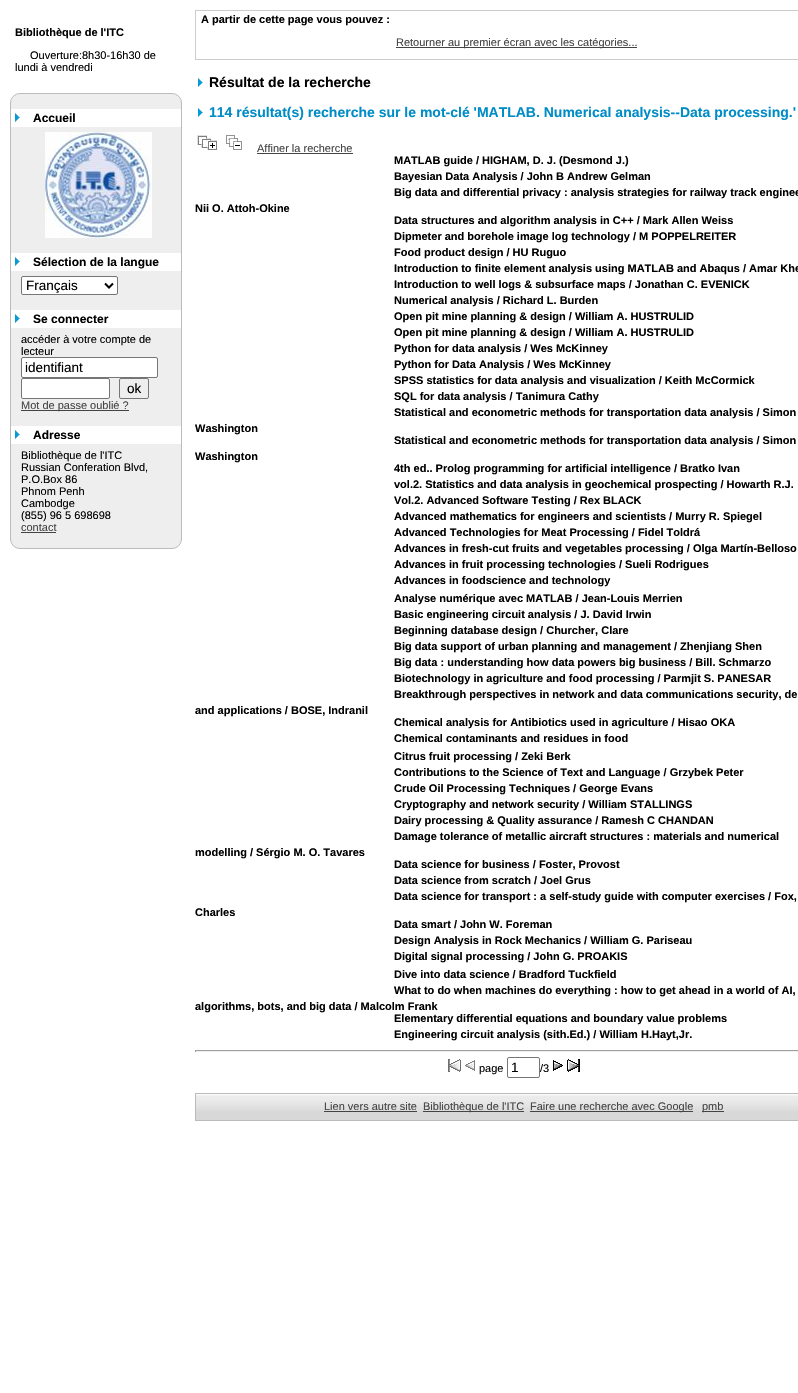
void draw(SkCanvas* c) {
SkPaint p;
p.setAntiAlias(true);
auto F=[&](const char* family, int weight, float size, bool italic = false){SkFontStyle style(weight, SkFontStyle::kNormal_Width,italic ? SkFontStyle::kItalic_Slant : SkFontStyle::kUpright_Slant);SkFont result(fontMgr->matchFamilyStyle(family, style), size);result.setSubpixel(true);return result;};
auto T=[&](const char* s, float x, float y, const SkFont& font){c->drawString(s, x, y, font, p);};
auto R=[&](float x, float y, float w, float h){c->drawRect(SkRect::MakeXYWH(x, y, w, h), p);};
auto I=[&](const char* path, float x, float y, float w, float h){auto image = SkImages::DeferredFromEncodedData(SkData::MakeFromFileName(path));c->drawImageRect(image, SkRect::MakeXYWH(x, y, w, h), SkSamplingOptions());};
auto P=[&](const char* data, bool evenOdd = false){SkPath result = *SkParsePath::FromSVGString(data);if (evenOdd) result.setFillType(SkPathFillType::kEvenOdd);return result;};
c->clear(0xffffffff);
auto f1 = F("Liberation Sans",700,11);
p.setColor(0xff000000);
T("Bibliothèque de l'ITC",15,36,f1);
auto f2 = F("Liberation Sans",400,11);
T("Ouverture:8h30-16h30 de",30,59,f2);
T("lundi à vendredi",15,71,f2);
p.setStroke(true);
p.setStrokeWidth(1);
p.setColor(0xffcccccc);
c->drawRect(SkRect::MakeXYWH(195.5,10.5,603,49),p);
p.setStroke(false);
p.setColor(0xff000000);
T("A partir de cette page vous pouvez :",201,23,f1);
p.setColor(0xff444444);
R(396,47,241,1);
T("Retourner au premier écran avec les catégories...",396,46,f2);
I("1.png",198,78,5,9);
auto f3 = F("Liberation Sans",700,14);
p.setColor(0xff000000);
T("Résultat de la recherche",209,87,f3);
I("1.png",198,108,5,9);
p.setColor(0xff008cc6);
T("114 résultat(s) recherche sur le mot-clé 'MATLAB. Numerical analysis--Data processing.'",209,117,f3);
I("2.png",197,135,20,15);
I("3.png",226,135,16,15);
p.setColor(0xff444444);
T("Affiner la recherche",257,152,f2);
R(257,153,96,1);
p.setColor(0xff000000);
T("MATLAB guide / HIGHAM, D. J. (Desmond J.)",394,164,f1);
T("Bayesian Data Analysis / John B Andrew Gelman",394,180,f1);
T("Big data and differential privacy : analysis strategies for railway track enginee",394,196,f1);
T("Nii O. Attoh-Okine",195,212,f1);
T("Data structures and algorithm analysis in C++ / Mark Allen Weiss",394,224,f1);
T("Dipmeter and borehole image log technology / M POPPELREITER",394,240,f1);
T("Food product design / HU Ruguo",394,256,f1);
T("Introduction to finite element analysis using MATLAB and Abaqus / Amar Khe",394,272,f1);
T("Introduction to well logs & subsurface maps / Jonathan C. EVENICK",394,288,f1);
T("Numerical analysis / Richard L. Burden",394,304,f1);
T("Open pit mine planning & design / William A. HUSTRULID",394,320,f1);
T("Open pit mine planning & design / William A. HUSTRULID",394,336,f1);
T("Python for data analysis / Wes McKinney",394,352,f1);
T("Python for Data Analysis / Wes McKinney",394,368,f1);
T("SPSS statistics for data analysis and visualization / Keith McCormick",394,384,f1);
T("SQL for data analysis / Tanimura Cathy",394,400,f1);
T("Statistical and econometric methods for transportation data analysis / Simon",394,416,f1);
T("Washington",195,432,f1);
T("Statistical and econometric methods for transportation data analysis / Simon",394,444,f1);
T("Washington",195,460,f1);
T("4th ed.. Prolog programming for artificial intelligence / Bratko Ivan",394,472,f1);
T("vol.2. Statistics and data analysis in geochemical prospecting / Howarth R.J.",394,488,f1);
T("Vol.2. Advanced Software Testing / Rex BLACK",394,504,f1);
T("Advanced mathematics for engineers and scientists / Murry R. Spiegel",394,520,f1);
T("Advanced Technologies for Meat Processing / Fidel Toldrá",394,536,f1);
T("Advances in fresh-cut fruits and vegetables processing / Olga Martín-Belloso",394,552,f1);
T("Advances in fruit processing technologies / Sueli Rodrigues",394,568,f1);
T("Advances in foodscience and technology",394,584,f1);
T("Analyse numérique avec MATLAB / Jean-Louis Merrien",394,602,f1);
T("Basic engineering circuit analysis / J. David Irwin",394,618,f1);
T("Beginning database design / Churcher, Clare",394,634,f1);
T("Big data support of urban planning and management / Zhenjiang Shen",394,650,f1);
T("Big data : understanding how data powers big business / Bill. Schmarzo",394,666,f1);
T("Biotechnology in agriculture and food processing / Parmjit S. PANESAR",394,682,f1);
T("Breakthrough perspectives in network and data communications security, de",394,698,f1);
T("and applications / BOSE, Indranil",195,714,f1);
T("Chemical analysis for Antibiotics used in agriculture / Hisao OKA",394,726,f1);
T("Chemical contaminants and residues in food",394,742,f1);
T("Citrus fruit processing / Zeki Berk",394,760,f1);
T("Contributions to the Science of Text and Language / Grzybek Peter",394,776,f1);
T("Crude Oil Processing Techniques / George Evans",394,792,f1);
T("Cryptography and network security / William STALLINGS",394,808,f1);
T("Dairy processing & Quality assurance / Ramesh C CHANDAN",394,824,f1);
T("Damage tolerance of metallic aircraft structures : materials and numerical",394,840,f1);
T("modelling / Sérgio M. O. Tavares",195,856,f1);
T("Data science for business / Foster, Provost",394,868,f1);
T("Data science from scratch / Joel Grus",394,884,f1);
T("Data science for transport : a self-study guide with computer exercises / Fox,",394,900,f1);
T("Charles",195,916,f1);
T("Data smart / John W. Foreman",394,928,f1);
T("Design Analysis in Rock Mechanics / William G. Pariseau",394,944,f1);
T("Digital signal processing / John G. PROAKIS",394,960,f1);
T("Dive into data science / Bradford Tuckfield",394,978,f1);
T("What to do when machines do everything : how to get ahead in a world of AI,",394,994,f1);
T("algorithms, bots, and big data / Malcolm Frank",195,1010,f1);
T("Elementary differential equations and boundary value problems",394,1022,f1);
T("Engineering circuit analysis (sith.Ed.) / William H.Hayt,Jr.",394,1038,f1);
p.setColor(0xff9f9f9f);
R(195,1050,603,1);
p.setColor(0xffeeeeee);
R(195,1051,603,1);
p.setColor(0xff9f9f9f);
R(195,1050,1,2);
I("4.png",448,1059,13,13);
I("5.png",465,1060,10,11);
p.setColor(0xff000000);
T("page",479,1072,f2);
p.setStroke(true);
p.setColor(0xff767676);
c->drawRoundRect(SkRect::MakeXYWH(507.5,1057.5,32,20),1.5,1.5,p);
auto f4 = F("Liberation Sans",400,13.5);
p.setStroke(false);
p.setColor(0xff000000);
T("1",511,1072,f4);
T("/3",540,1072,f2);
I("6.png",553,1060,10,11);
I("7.png",567,1059,13,13);
I("8.png",196,1094,602,26);
p.setStroke(true);
p.setColor(0xffbbbbbb);
c->drawRect(SkRect::MakeXYWH(195.5,1093.5,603,27),p);
p.setStroke(false);
p.setColor(0xff444444);
T("Lien vers autre site",324,1110,f2);
R(324,1111,93,1);
R(423,1111,101,1);
T("Bibliothèque de l'ITC",423,1110,f2);
R(530,1111,163,1);
T("Faire une recherche avec Google",530,1110,f2);
R(702,1111,22,1);
T("pmb",702,1110,f2);
p.setColor(0xffeeeeee);
c->drawRoundRect(SkRect::MakeXYWH(10.5,93.5,171,455),9.5,9.5,p);
p.setStroke(true);
p.setColor(0xffbbbbbb);
c->drawRoundRect(SkRect::MakeXYWH(10.5,93.5,171,455),9.5,9.5,p);
p.setStroke(false);
p.setColor(0xffffffff);
R(11,109,170,18);
I("1.png",15,113,5,9);
auto f5 = F("Liberation Sans",700,12);
p.setColor(0xff000000);
T("Accueil",33,122,f5);
I("9.png",45,132,107,106);
p.setColor(0xffffffff);
R(11,253,170,18);
I("1.png",15,257,5,9);
p.setColor(0xff000000);
T("Sélection de la langue",33,266,f5);
p.setColor(0xffffffff);
c->drawRoundRect(SkRect::MakeXYWH(21.5,276.5,96,18),1.5,1.5,p);
p.setStroke(true);
p.setColor(0xff767676);
c->drawRoundRect(SkRect::MakeXYWH(21.5,276.5,96,18),1.5,1.5,p);
p.setStrokeWidth(2);
p.setColor(0xff000000);
c->drawPath(P("M105 283.5l4 4l4-4"),p);
p.setStroke(false);
T("Français",26,290,f4);
p.setColor(0xffffffff);
R(11,310,170,18);
I("1.png",15,314,5,9);
p.setColor(0xff000000);
T("Se connecter",33,323,f5);
T("accéder à votre compte de",21,343,f2);
T("lecteur",21,355,f2);
p.setColor(0xffffffff);
c->drawRoundRect(SkRect::MakeXYWH(21.5,357.5,136,20),1.5,1.5,p);
p.setStroke(true);
p.setStrokeWidth(1);
p.setColor(0xff767676);
c->drawRoundRect(SkRect::MakeXYWH(21.5,357.5,136,20),1.5,1.5,p);
p.setStroke(false);
p.setColor(0xff000000);
T("identifiant",25,372,f4);
p.setColor(0xffffffff);
c->drawRoundRect(SkRect::MakeXYWH(21.5,378.5,88,20),1.5,1.5,p);
p.setStroke(true);
p.setColor(0xff767676);
c->drawRoundRect(SkRect::MakeXYWH(21.5,378.5,88,20),1.5,1.5,p);
c->drawRoundRect(SkRect::MakeXYWH(119.5,378.5,29,20),1.5,1.5,p);
p.setStroke(false);
p.setColor(0xff000000);
T("ok",127,393,f4);
p.setColor(0xff444444);
R(21,410,108,1);
T("Mot de passe oublié ?",21,409,f2);
p.setColor(0xffffffff);
R(11,426,170,18);
I("1.png",15,430,5,9);
p.setColor(0xff000000);
T("Adresse",33,439,f5);
T("Bibliothèque de l'ITC",21,459,f2);
T("Russian Conferation Blvd,",21,471,f2);
T("P.O.Box 86",21,483,f2);
T("Phnom Penh",21,495,f2);
T("Cambodge",21,507,f2);
T("(855) 96 5 698698",21,519,f2);
p.setColor(0xff444444);
T("contact",21,531,f2);
R(21,532,35,1);
}
